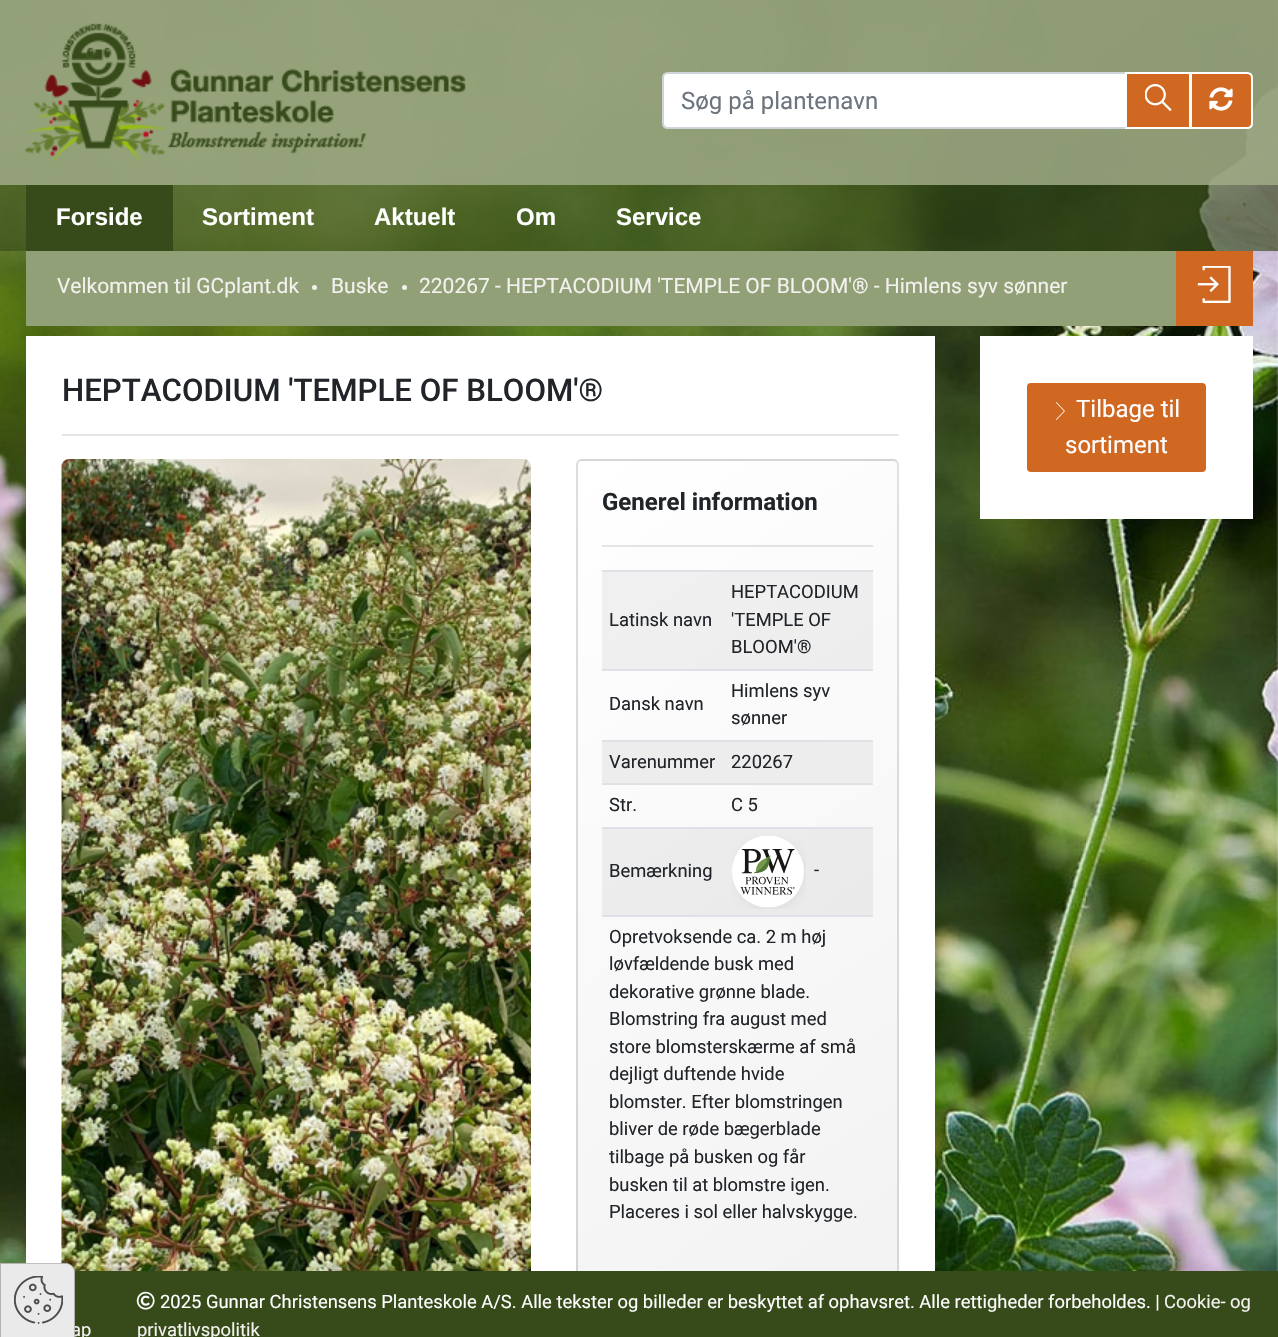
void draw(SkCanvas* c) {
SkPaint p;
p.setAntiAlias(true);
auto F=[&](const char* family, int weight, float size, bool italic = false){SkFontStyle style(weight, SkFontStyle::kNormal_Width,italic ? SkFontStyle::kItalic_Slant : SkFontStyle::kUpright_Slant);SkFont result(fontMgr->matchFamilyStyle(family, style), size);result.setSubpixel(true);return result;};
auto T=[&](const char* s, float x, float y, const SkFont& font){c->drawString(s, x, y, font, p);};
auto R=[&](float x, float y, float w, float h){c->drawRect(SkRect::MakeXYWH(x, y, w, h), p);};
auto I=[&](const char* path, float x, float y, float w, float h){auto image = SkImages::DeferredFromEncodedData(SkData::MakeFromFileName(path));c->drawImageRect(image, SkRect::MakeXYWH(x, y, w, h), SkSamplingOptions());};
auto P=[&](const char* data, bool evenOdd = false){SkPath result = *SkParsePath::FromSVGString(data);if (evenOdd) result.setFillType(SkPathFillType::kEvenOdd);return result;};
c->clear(0xffffffff);
I("1.png",0,0,1278,1271);
p.setColor(0xf294a07a);
R(0,0,1278,185);
I("2.png",25,23,441,138);
p.setColor(0xffffffff);
c->drawPath(P("M668 73h458v55h-458c-3 0-5-2-5-5v-45c0-3 2-5 5-5z"),p);
p.setStroke(true);
p.setStrokeWidth(2);
p.setColor(0xffced4da);
c->drawPath(P("M668 73h458v55h-458c-3 0-5-2-5-5v-45c0-3 2-5 5-5z"),p);
auto f1 = F("Roboto",400,24);
p.setStroke(false);
p.setColor(0xff6c757d);
T("Søg på plantenavn",681,109,f1);
p.setColor(0xffd16822);
c->drawRect(SkRect::MakeXYWH(1126,73,64,55),p);
p.setStroke(true);
p.setColor(0xffffffff);
c->drawRect(SkRect::MakeXYWH(1126,73,64,55),p);
I("3.png",1145,84,27,27);
p.setStroke(false);
p.setColor(0xffd16822);
c->drawPath(P("M1191 73h56c3 0 5 2 5 5v45c0 3-2 5-5 5h-56z"),p);
p.setStroke(true);
p.setColor(0xffffffff);
c->drawPath(P("M1191 73h56c3 0 5 2 5 5v45c0 3-2 5-5 5h-56z"),p);
I("4.png",1209,87,24,24);
p.setStroke(false);
p.setColor(0xa6364a1a);
R(0,185,1278,66);
p.setColor(0xff364a1a);
R(26,185,147,66);
auto f2 = F("Liberation Sans",700,24);
p.setColor(0xffffffff);
T("Forside",56,225,f2);
T("Sortiment",202,225,f2);
T("Aktuelt",374,225,f2);
T("Om",516,225,f2);
T("Service",616,225,f2);
p.setColor(0xff92a077);
R(26,251,1150,75);
auto f3 = F("Roboto",400,21);
p.setColor(0xfff3f1ee);
T("Velkommen til GCplant.dk",57,293,f3);
c->drawCircle(314.5,287.5,2.5,p);
T("Buske",331,293,f3);
c->drawCircle(404.5,287.5,2.5,p);
T("220267 - HEPTACODIUM 'TEMPLE OF BLOOM'® - Himlens syv sønner",419,293,f3);
p.setColor(0xffd16822);
R(1176,251,77,75);
I("5.png",1197,266,34,37);
p.setColor(0xffffffff);
R(26,336,909,935);
auto f4 = F("Roboto",500,31.25);
p.setColor(0xff212529);
T("HEPTACODIUM 'TEMPLE OF BLOOM'®",62,401,f4);
p.setColor(0xffe6e6e6);
R(62,434,837,2);
I("6.png",61,459,470,812);
c->save();
c->clipPath(P("M582 459h311c3.5 0 6 2.5 6 6v836c0 3.5-2.5 6-6 6h-311c-3.5 0-6-2.5-6-6v-836c0-3.5 2.5-6 6-6z"),true);
{
const SkColor colors[] = {0xffffffff,0xfff2f2f2};
const float stops[] = {0,1};
const SkPoint ends[] = {{486,-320}, {988,397}};
p.setShader(SkGradientShader::MakeLinear(ends, colors, stops, 2, SkTileMode::kClamp));
p.setAlpha(255);
}
R(578,459,319,2);
{
const SkColor colors[] = {0xffffffff,0xfff2f2f2};
const float stops[] = {0,1};
const SkPoint ends[] = {{167,524}, {669,1241}};
p.setShader(SkGradientShader::MakeLinear(ends, colors, stops, 2, SkTileMode::kClamp));
p.setAlpha(255);
}
R(576,461,2,810);
c->restore();
{
const SkColor colors[] = {0xffffffff,0xfff2f2f2};
const float stops[] = {0,1};
const SkPoint ends[] = {{486,524}, {988,1241}};
p.setShader(SkGradientShader::MakeLinear(ends, colors, stops, 2, SkTileMode::kClamp));
p.setAlpha(255);
}
R(578,461,319,810);
c->save();
c->clipPath(P("M582 459h311c3.5 0 6 2.5 6 6v836c0 3.5-2.5 6-6 6h-311c-3.5 0-6-2.5-6-6v-836c0-3.5 2.5-6 6-6z"),true);
{
const SkColor colors[] = {0xffffffff,0xfff2f2f2};
const float stops[] = {0,1};
const SkPoint ends[] = {{806,524}, {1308,1241}};
p.setShader(SkGradientShader::MakeLinear(ends, colors, stops, 2, SkTileMode::kClamp));
p.setAlpha(255);
}
R(897,461,2,810);
c->restore();
p.setStroke(true);
p.setShader(nullptr);
p.setColor(0x1f000000);
c->drawRoundRect(SkRect::MakeXYWH(577,460,321,846),5,5,p);
auto f5 = F("Roboto",700,24);
p.setStroke(false);
p.setColor(0xff212529);
T("Generel information",602,510,f5);
p.setColor(0x1a000000);
R(602,545,271,2);
p.setColor(0x0d000000);
R(602,572,271,97);
auto f6 = F("Roboto",400,18.38);
p.setColor(0xff212529);
T("Latinsk navn",609,626,f6);
p.setColor(0xffdee2e6);
R(602,570,271,2);
p.setColor(0xff212529);
T("HEPTACODIUM",731,598,f6);
T("'TEMPLE OF",731,626,f6);
T("BLOOM'®",731,653,f6);
T("Dansk navn",609,710,f6);
p.setColor(0xffdee2e6);
R(602,669,271,2);
p.setColor(0xff212529);
T("Himlens syv",731,697,f6);
T("sønner",731,724,f6);
p.setColor(0xffededed);
R(602,742,271,41);
p.setColor(0xff212529);
T("Varenummer",609,768,f6);
p.setColor(0xffdee2e6);
R(602,740,271,2);
p.setColor(0xff212529);
T("220267",731,768,f6);
T("Str.",609,811,f6);
p.setColor(0xffdee2e6);
R(602,783,271,2);
p.setColor(0xff212529);
T("C 5",731,811,f6);
p.setColor(0x0d000000);
R(602,829,271,86);
p.setColor(0xff212529);
T("Bemærkning",609,877,f6);
p.setColor(0xffdee2e6);
R(602,827,271,2);
I("7.png",732,836,74,73);
p.setColor(0xff212529);
T("-",814,876,f6);
p.setColor(0xffdee2e6);
R(602,915,271,2);
p.setColor(0xff212529);
T("Opretvoksende ca. 2 m høj",609,943,f6);
T("løvfældende busk med",609,970,f6);
T("dekorative grønne blade.",609,998,f6);
T("Blomstring fra august med",609,1025,f6);
T("store blomsterskærme af små",609,1053,f6);
T("dejligt duftende hvide",609,1080,f6);
T("blomster. Efter blomstringen",609,1108,f6);
T("bliver de røde bægerblade",609,1135,f6);
T("tilbage på busken og får",609,1163,f6);
T("busken til at blomstre igen.",609,1191,f6);
T("Placeres i sol eller halvskygge.",609,1218,f6);
p.setColor(0xffffffff);
R(980,336,273,183);
p.setColor(0xffd16822);
c->drawRoundRect(SkRect::MakeXYWH(1026,382,181,91),5,5,p);
p.setStroke(true);
p.setColor(0xffffffff);
c->drawRoundRect(SkRect::MakeXYWH(1026,382,181,91),5,5,p);
I("8.png",1055,402,10,18);
p.setStroke(false);
T("Tilbage til",1076,417,f1);
T("sortiment",1065,453,f1);
p.setColor(0xff364a1a);
R(0,1271,1278,66);
p.setColor(0xfff3f1ee);
T("ap",71,1336,f6);
I("9.png",0,1263,75,74);
I("10.png",136,1291,19,19);
p.setColor(0xffffffff);
T("2025 Gunnar Christensens Planteskole A/S. Alle tekster og billeder er beskyttet af ophavsret. Alle rettigheder forbeholdes. |",160,1308,f6);
p.setColor(0xfff3f1ee);
T("Cookie- og",1164,1308,f6);
T("privatlivspolitik",137,1336,f6);
}
